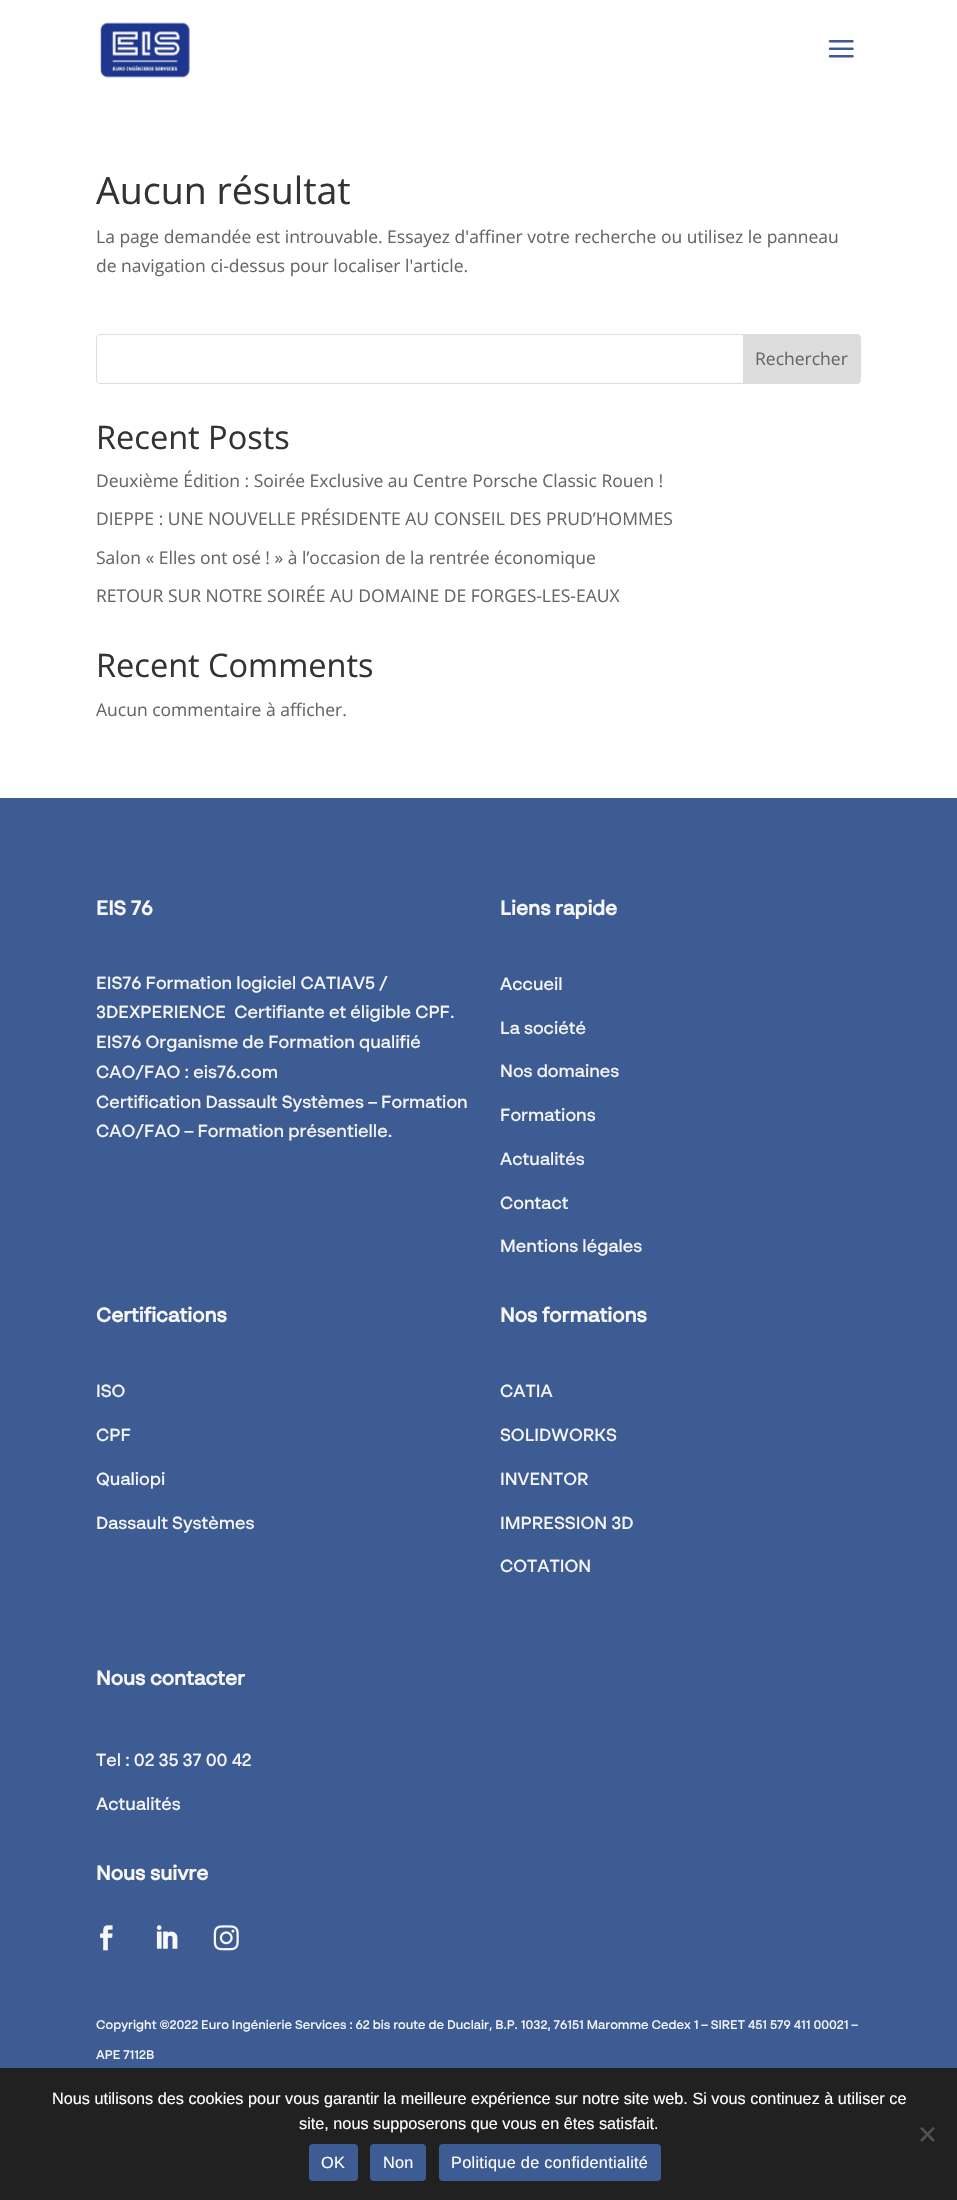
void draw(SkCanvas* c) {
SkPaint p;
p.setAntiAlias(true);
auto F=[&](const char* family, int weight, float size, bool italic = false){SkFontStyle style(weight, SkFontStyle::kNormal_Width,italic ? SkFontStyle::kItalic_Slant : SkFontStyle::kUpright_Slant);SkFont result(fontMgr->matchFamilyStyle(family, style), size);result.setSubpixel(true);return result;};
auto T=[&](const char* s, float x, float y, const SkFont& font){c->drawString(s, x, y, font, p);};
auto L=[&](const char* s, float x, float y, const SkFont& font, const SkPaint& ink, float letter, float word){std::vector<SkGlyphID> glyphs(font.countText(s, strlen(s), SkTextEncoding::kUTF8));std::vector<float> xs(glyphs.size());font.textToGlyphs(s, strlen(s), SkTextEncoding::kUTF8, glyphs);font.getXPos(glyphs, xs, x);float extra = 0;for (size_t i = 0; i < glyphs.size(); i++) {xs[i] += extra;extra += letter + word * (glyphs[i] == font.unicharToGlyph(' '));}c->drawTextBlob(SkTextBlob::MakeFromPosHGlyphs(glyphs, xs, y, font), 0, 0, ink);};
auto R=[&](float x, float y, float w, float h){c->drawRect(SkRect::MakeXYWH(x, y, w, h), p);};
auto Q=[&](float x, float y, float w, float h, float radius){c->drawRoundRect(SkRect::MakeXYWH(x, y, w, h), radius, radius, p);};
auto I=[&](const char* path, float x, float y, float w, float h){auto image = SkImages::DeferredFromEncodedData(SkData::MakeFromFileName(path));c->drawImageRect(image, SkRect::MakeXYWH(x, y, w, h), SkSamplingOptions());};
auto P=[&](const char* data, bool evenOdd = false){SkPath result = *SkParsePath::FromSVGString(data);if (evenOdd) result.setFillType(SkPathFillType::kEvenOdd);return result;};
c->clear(0xffffffff);
I("1.png",100,22,90,56);
I("2.png",828,40,26,18);
auto f1 = F("Open Sans",400,37.5);
p.setColor(0xff333333);
T("Aucun résultat",96,204,f1);
auto f2 = F("Open Sans",400,17.5);
p.setColor(0xff666666);
T("La page demandée est introuvable. Essayez d'affiner votre recherche ou utilisez le panneau",96,243,f2);
T("de navigation ci-dessus pour localiser l'article.",96,272,f2);
p.setStroke(true);
p.setStrokeWidth(1);
p.setColor(0xffdddddd);
c->drawRoundRect(SkRect::MakeXYWH(96.5,334.5,764,49),3.5,3.5,p);
p.setStroke(false);
c->drawPath(P("M743.5 334.5h113.5c2 0 3.5 1.5 3.5 3.5v42c0 2-1.5 3.5-3.5 3.5h-113.5z"),p);
p.setStroke(true);
c->drawPath(P("M743.5 334.5h113.5c2 0 3.5 1.5 3.5 3.5v42c0 2-1.5 3.5-3.5 3.5h-113.5z"),p);
p.setStroke(false);
p.setColor(0xff666666);
T("Rechercher",755,365,f2);
auto f3 = F("Open Sans",400,32.5);
p.setColor(0xff333333);
T("Recent Posts",96,449,f3);
p.setColor(0xff666666);
T("Deuxième Édition : Soirée Exclusive au Centre Porsche Classic Rouen !",96,487,f2);
T("DIEPPE : UNE NOUVELLE PRÉSIDENTE AU CONSEIL DES PRUD’HOMMES",96,525,f2);
T("Salon « Elles ont osé ! » à l’occasion de la rentrée économique",96,564,f2);
T("RETOUR SUR NOTRE SOIRÉE AU DOMAINE DE FORGES-LES-EAUX",96,602,f2);
p.setColor(0xff333333);
T("Recent Comments",96,677,f3);
p.setColor(0xff666666);
T("Aucun commentaire à afficher.",96,716,f2);
p.setColor(0xff3e5c94);
R(0,798,957,1270);
auto f4 = F("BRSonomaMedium",700,20);
p.setColor(0xfff7f7f7);
T("EIS 76",96,915,f4);
auto f5 = F("BRSonomaMedium",500,17.5);
T("EIS76 Formation logiciel CATIAV5 /",96,989,f5);
T("3DEXPERIENCE  Certifiante et éligible CPF.",96,1018,f5);
T("EIS76 Organisme de Formation qualifié",96,1048,f5);
T("CAO/FAO : eis76.com",96,1078,f5);
T("Certification Dassault Systèmes – Formation",96,1108,f5);
T("CAO/FAO – Formation présentielle.",96,1137,f5);
T("Liens rapide",500,915,f4);
T("Accueil",500,990,f5);
T("La société",500,1034,f5);
T("Nos domaines",500,1077,f5);
T("Formations",500,1121,f5);
T("Actualités",500,1165,f5);
T("Contact",500,1209,f5);
T("Mentions légales",500,1252,f5);
T("Certifications",96,1322,f4);
T("ISO",96,1397,f5);
T("CPF",96,1441,f5);
T("Qualiopi",96,1485,f5);
T("Dassault Systèmes",96,1529,f5);
T("Nos formations",500,1322,f4);
T("CATIA",500,1397,f5);
T("SOLIDWORKS",500,1441,f5);
T("INVENTOR",500,1485,f5);
T("IMPRESSION 3D",500,1529,f5);
T("COTATION",500,1572,f5);
T("Nous contacter",96,1685,f4);
T("Tel : 02 35 37 00 42",96,1766,f5);
T("Actualités",96,1810,f5);
T("Nous suivre",96,1880,f4);
I("3.png",100,1925,13,26);
I("4.png",156,1925,22,24);
I("5.png",213,1925,26,26);
auto f6 = F("BRSonomaMedium",500,12.5);
T("Copyright ©2022 Euro Ingénierie Services : 62 bis route de Duclair, B.P. 1032, 76151 Maromme Cedex 1 – SIRET 451 579 411 00021 –",96,2029,f6);
T("APE 7112B",96,2059,f6);
p.setColor(0xff212121);
R(0,2068,957,132);
auto f7 = F("Liberation Sans",400,16.25);
p.setColor(0xffffffff);
T("Nous utilisons des cookies pour vous garantir la meilleure expérience sur notre site web. Si vous continuez à utiliser ce",52,2104,f7);
T("site, nous supposerons que vous en êtes satisfait.",299,2129,f7);
p.setColor(0xff515151);
c->drawPath(P("M933 2127l2 1.5l-13 13.5l-2-2z"),p);
c->drawPath(P("M920 2128.5l2-1.5l13 13l-2 2z"),p);
p.setColor(0xff3d5c94);
Q(309,2144,49,37,4);
p.setColor(0xffffffff);
L("OK",321,2168,f7,p,.3,0);
p.setColor(0xff3d5c94);
Q(370,2144,56,37,4);
p.setColor(0xffffffff);
L("Non",383,2168,f7,p,.3,0);
p.setColor(0xff3d5c94);
Q(439,2144,222,37,4);
p.setColor(0xffffffff);
L("Politique de confidentialité",451,2168,f7,p,.3,0);
}
